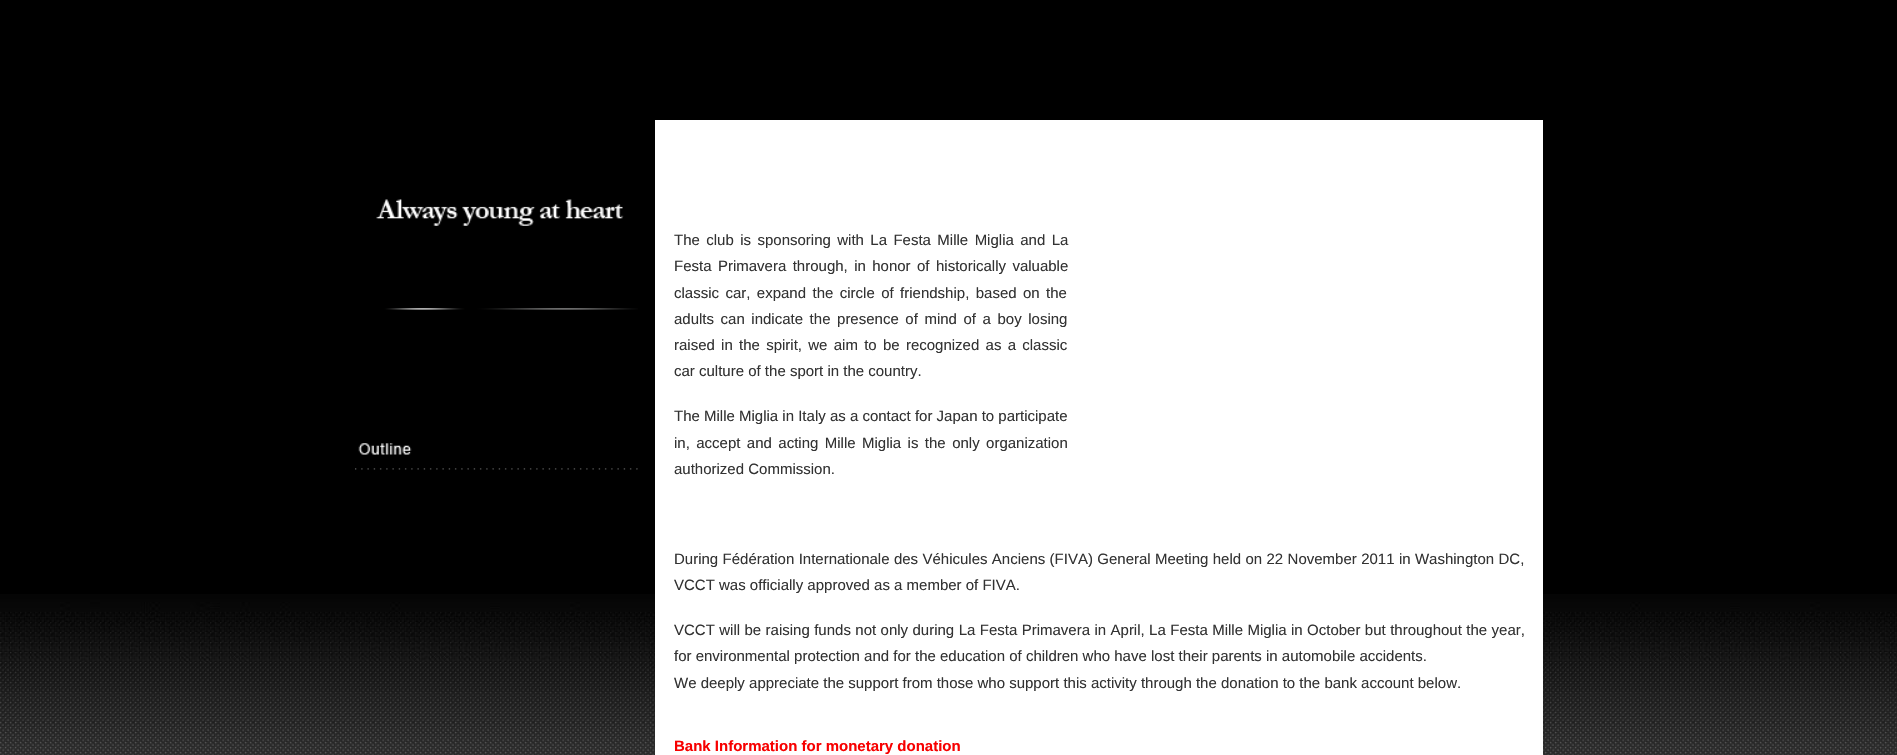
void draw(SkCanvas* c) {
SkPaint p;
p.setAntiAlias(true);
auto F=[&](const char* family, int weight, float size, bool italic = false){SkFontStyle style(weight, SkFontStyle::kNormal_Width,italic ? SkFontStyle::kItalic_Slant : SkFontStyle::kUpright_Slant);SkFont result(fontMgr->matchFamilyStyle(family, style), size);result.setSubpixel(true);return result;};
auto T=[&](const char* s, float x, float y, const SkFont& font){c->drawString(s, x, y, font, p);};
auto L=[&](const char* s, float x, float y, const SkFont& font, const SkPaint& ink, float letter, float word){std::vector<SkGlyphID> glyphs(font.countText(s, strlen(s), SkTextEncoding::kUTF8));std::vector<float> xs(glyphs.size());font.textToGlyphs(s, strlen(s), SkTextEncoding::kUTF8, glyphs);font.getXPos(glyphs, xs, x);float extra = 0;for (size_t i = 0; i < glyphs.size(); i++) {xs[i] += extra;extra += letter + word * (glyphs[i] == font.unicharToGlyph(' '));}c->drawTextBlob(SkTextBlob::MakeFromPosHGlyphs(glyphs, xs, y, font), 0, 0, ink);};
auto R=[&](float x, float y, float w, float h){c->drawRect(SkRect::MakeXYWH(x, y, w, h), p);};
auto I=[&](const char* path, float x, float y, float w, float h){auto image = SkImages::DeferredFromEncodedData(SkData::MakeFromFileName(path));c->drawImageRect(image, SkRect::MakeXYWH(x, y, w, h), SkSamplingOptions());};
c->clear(0xff000000);
I("1.png",0,594,1897,161);
I("2.png",376,199,262,111);
I("3.png",355,443,283,27);
p.setColor(0xffffffff);
R(655,120,888,635);
auto f1 = F("Liberation Sans",400,15);
p.setColor(0xff333333);
L("The club is sponsoring with La Festa Mille Miglia and La",674,245,f1,p,0,2.25);
L("Festa Primavera through, in honor of historically valuable",674,271,f1,p,0,2.25);
L("classic car, expand the circle of friendship, based on the",674,298,f1,p,0,2.25);
L("adults can indicate the presence of mind of a boy losing",674,324,f1,p,0,2.4);
L("raised in the spirit, we aim to be recognized as a classic",674,350,f1,p,0,2.1);
T("car culture of the sport in the country.",674,376,f1);
T("The Mille Miglia in Italy as a contact for Japan to participate",674,421,f1);
L("in, accept and acting Mille Miglia is the only organization",674,448,f1,p,0,2.25);
T("authorized Commission.",674,474,f1);
L("During Fédération Internationale des Véhicules Anciens (FIVA) General Meeting held on 22 November 2011 in Washington DC,",674,564,f1,p,0,.2);
T("VCCT was officially approved as a member of FIVA.",674,590,f1);
L("VCCT will be raising funds not only during La Festa Primavera in April, La Festa Mille Miglia in October but throughout the year,",674,635,f1,p,0,.25);
T("for environmental protection and for the education of children who have lost their parents in automobile accidents.",674,661,f1);
T("We deeply appreciate the support from those who support this activity through the donation to the bank account below.",674,688,f1);
auto f2 = F("Liberation Sans",700,15);
p.setColor(0xfff70000);
T("Bank Information for monetary donation",674,751,f2);
}
